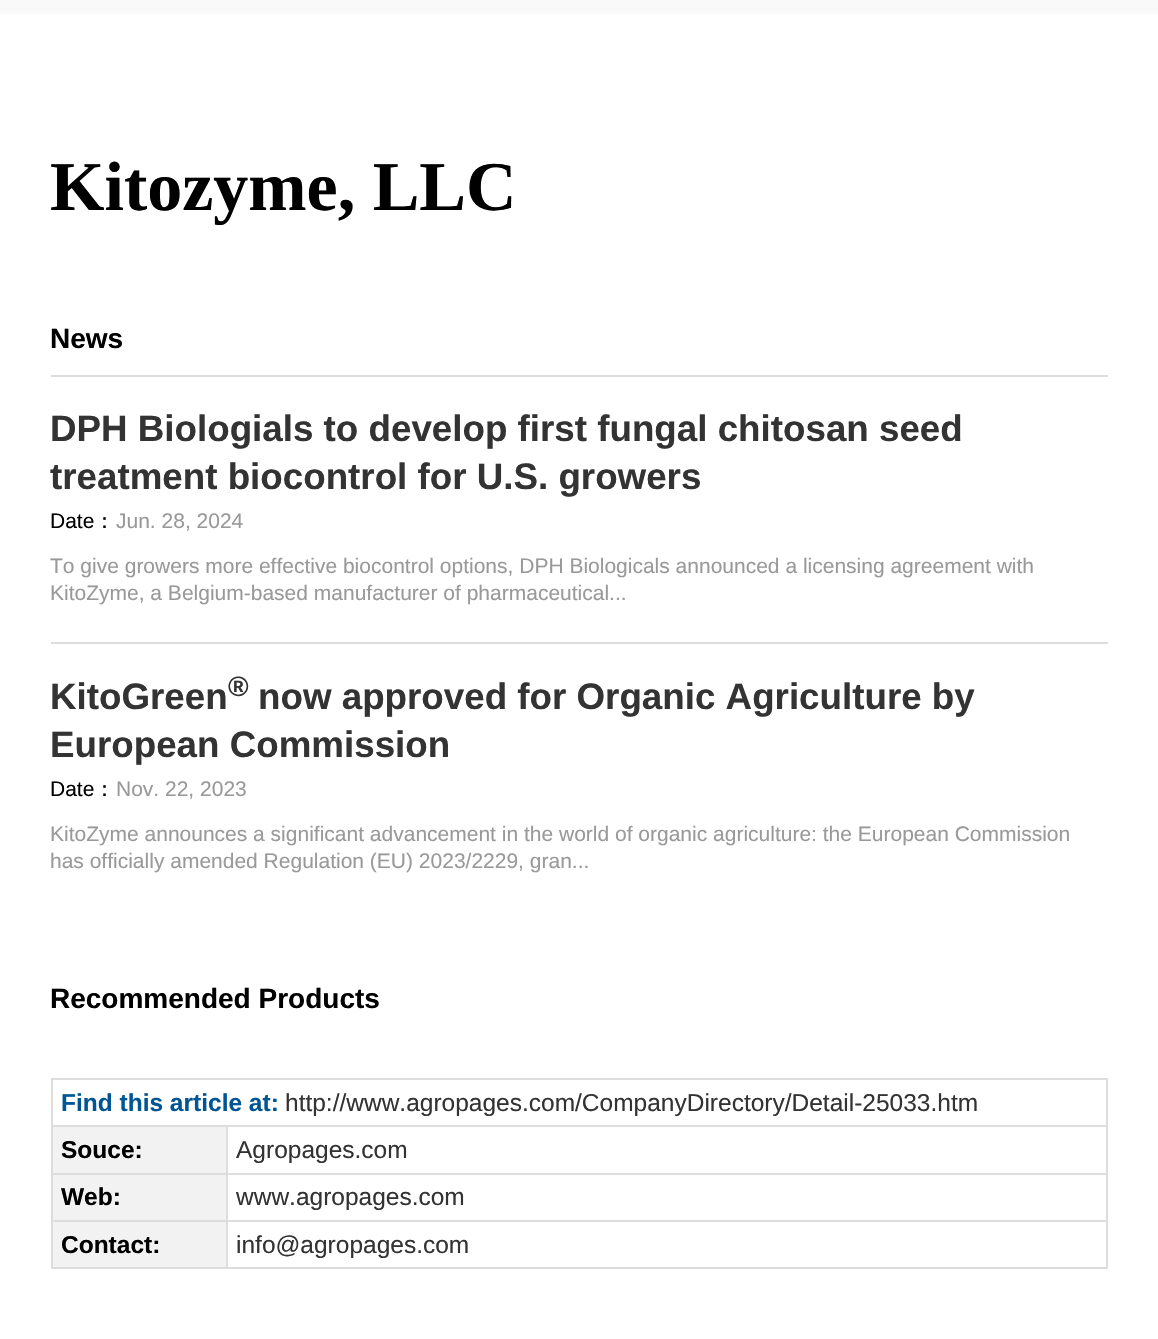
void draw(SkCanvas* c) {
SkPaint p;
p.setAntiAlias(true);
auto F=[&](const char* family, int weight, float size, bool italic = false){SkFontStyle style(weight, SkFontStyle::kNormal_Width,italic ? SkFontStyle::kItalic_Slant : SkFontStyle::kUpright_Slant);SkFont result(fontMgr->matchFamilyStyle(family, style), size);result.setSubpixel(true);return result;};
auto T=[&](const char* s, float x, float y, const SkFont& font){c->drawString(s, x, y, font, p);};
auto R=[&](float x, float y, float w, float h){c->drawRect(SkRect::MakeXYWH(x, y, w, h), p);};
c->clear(0xffffffff);
p.setColor(0xfff9f9f9);
R(0,0,1158,14);
auto f1 = F("Liberation Serif",700,70);
p.setColor(0xff000000);
T("Kitozyme, LLC",50,210,f1);
auto f2 = F("Liberation Sans",700,28);
T("News",50,348,f2);
p.setColor(0xffdddddd);
R(51,375,1057,2);
auto f3 = F("Liberation Sans",700,36.75);
p.setColor(0xff333333);
T("DPH Biologials to develop first fungal chitosan seed",50,441,f3);
T("treatment biocontrol for U.S. growers",50,489,f3);
auto f4 = F("Liberation Sans",400,21);
p.setColor(0xff000000);
T("Date",50,528,f4);
auto f5 = F("WenQuanYi Zen Hei",500,21);
T("：",94,528,f5);
p.setColor(0xff999999);
T("Jun. 28, 2024",116,528,f4);
T("To give growers more effective biocontrol options, DPH Biologicals announced a licensing agreement with",50,573,f4);
T("KitoZyme, a Belgium-based manufacturer of pharmaceutical...",50,600,f4);
p.setColor(0xffdddddd);
R(51,642,1057,2);
p.setColor(0xff333333);
T("KitoGreen",50,709,f3);
T("®",228,696,f2);
T("now approved for Organic Agriculture by",258,709,f3);
T("European Commission",50,757,f3);
p.setColor(0xff000000);
T("Date",50,796,f4);
T("：",94,796,f5);
p.setColor(0xff999999);
T("Nov. 22, 2023",116,796,f4);
T("KitoZyme announces a significant advancement in the world of organic agriculture: the European Commission",50,841,f4);
T("has officially amended Regulation (EU) 2023/2229, gran...",50,868,f4);
p.setColor(0xff000000);
T("Recommended Products",50,1008,f2);
p.setColor(0xffdddddd);
R(51,1078,1057,2);
R(51,1078,2,191);
R(1106,1078,2,191);
R(226,1267,882,2);
R(226,1220,2,49);
R(226,1220,882,2);
R(226,1173,2,49);
R(226,1173,882,2);
R(226,1125,2,49);
R(51,1125,1057,2);
auto f6 = F("Liberation Sans",700,24.5);
p.setColor(0xff005595);
T("Find this article at:",61,1111,f6);
auto f7 = F("Liberation Sans",400,24.5);
p.setColor(0xff333333);
T("http://www.agropages.com/CompanyDirectory/Detail-25033.htm",285,1111,f7);
p.setColor(0xfff2f2f2);
R(53,1127,173,46);
p.setColor(0xffdddddd);
R(51,1173,177,2);
p.setColor(0xff000000);
T("Souce:",61,1158,f6);
p.setColor(0xff333333);
T("Agropages.com",236,1158,f7);
p.setColor(0xfff2f2f2);
R(53,1175,173,45);
p.setColor(0xffdddddd);
R(51,1220,177,2);
p.setColor(0xff000000);
T("Web:",61,1205,f6);
p.setColor(0xff333333);
T("www.agropages.com",236,1205,f7);
p.setColor(0xfff2f2f2);
R(53,1222,173,45);
p.setColor(0xffdddddd);
R(51,1267,177,2);
p.setColor(0xff000000);
T("Contact:",61,1253,f6);
p.setColor(0xff333333);
T("info@agropages.com",236,1253,f7);
}
